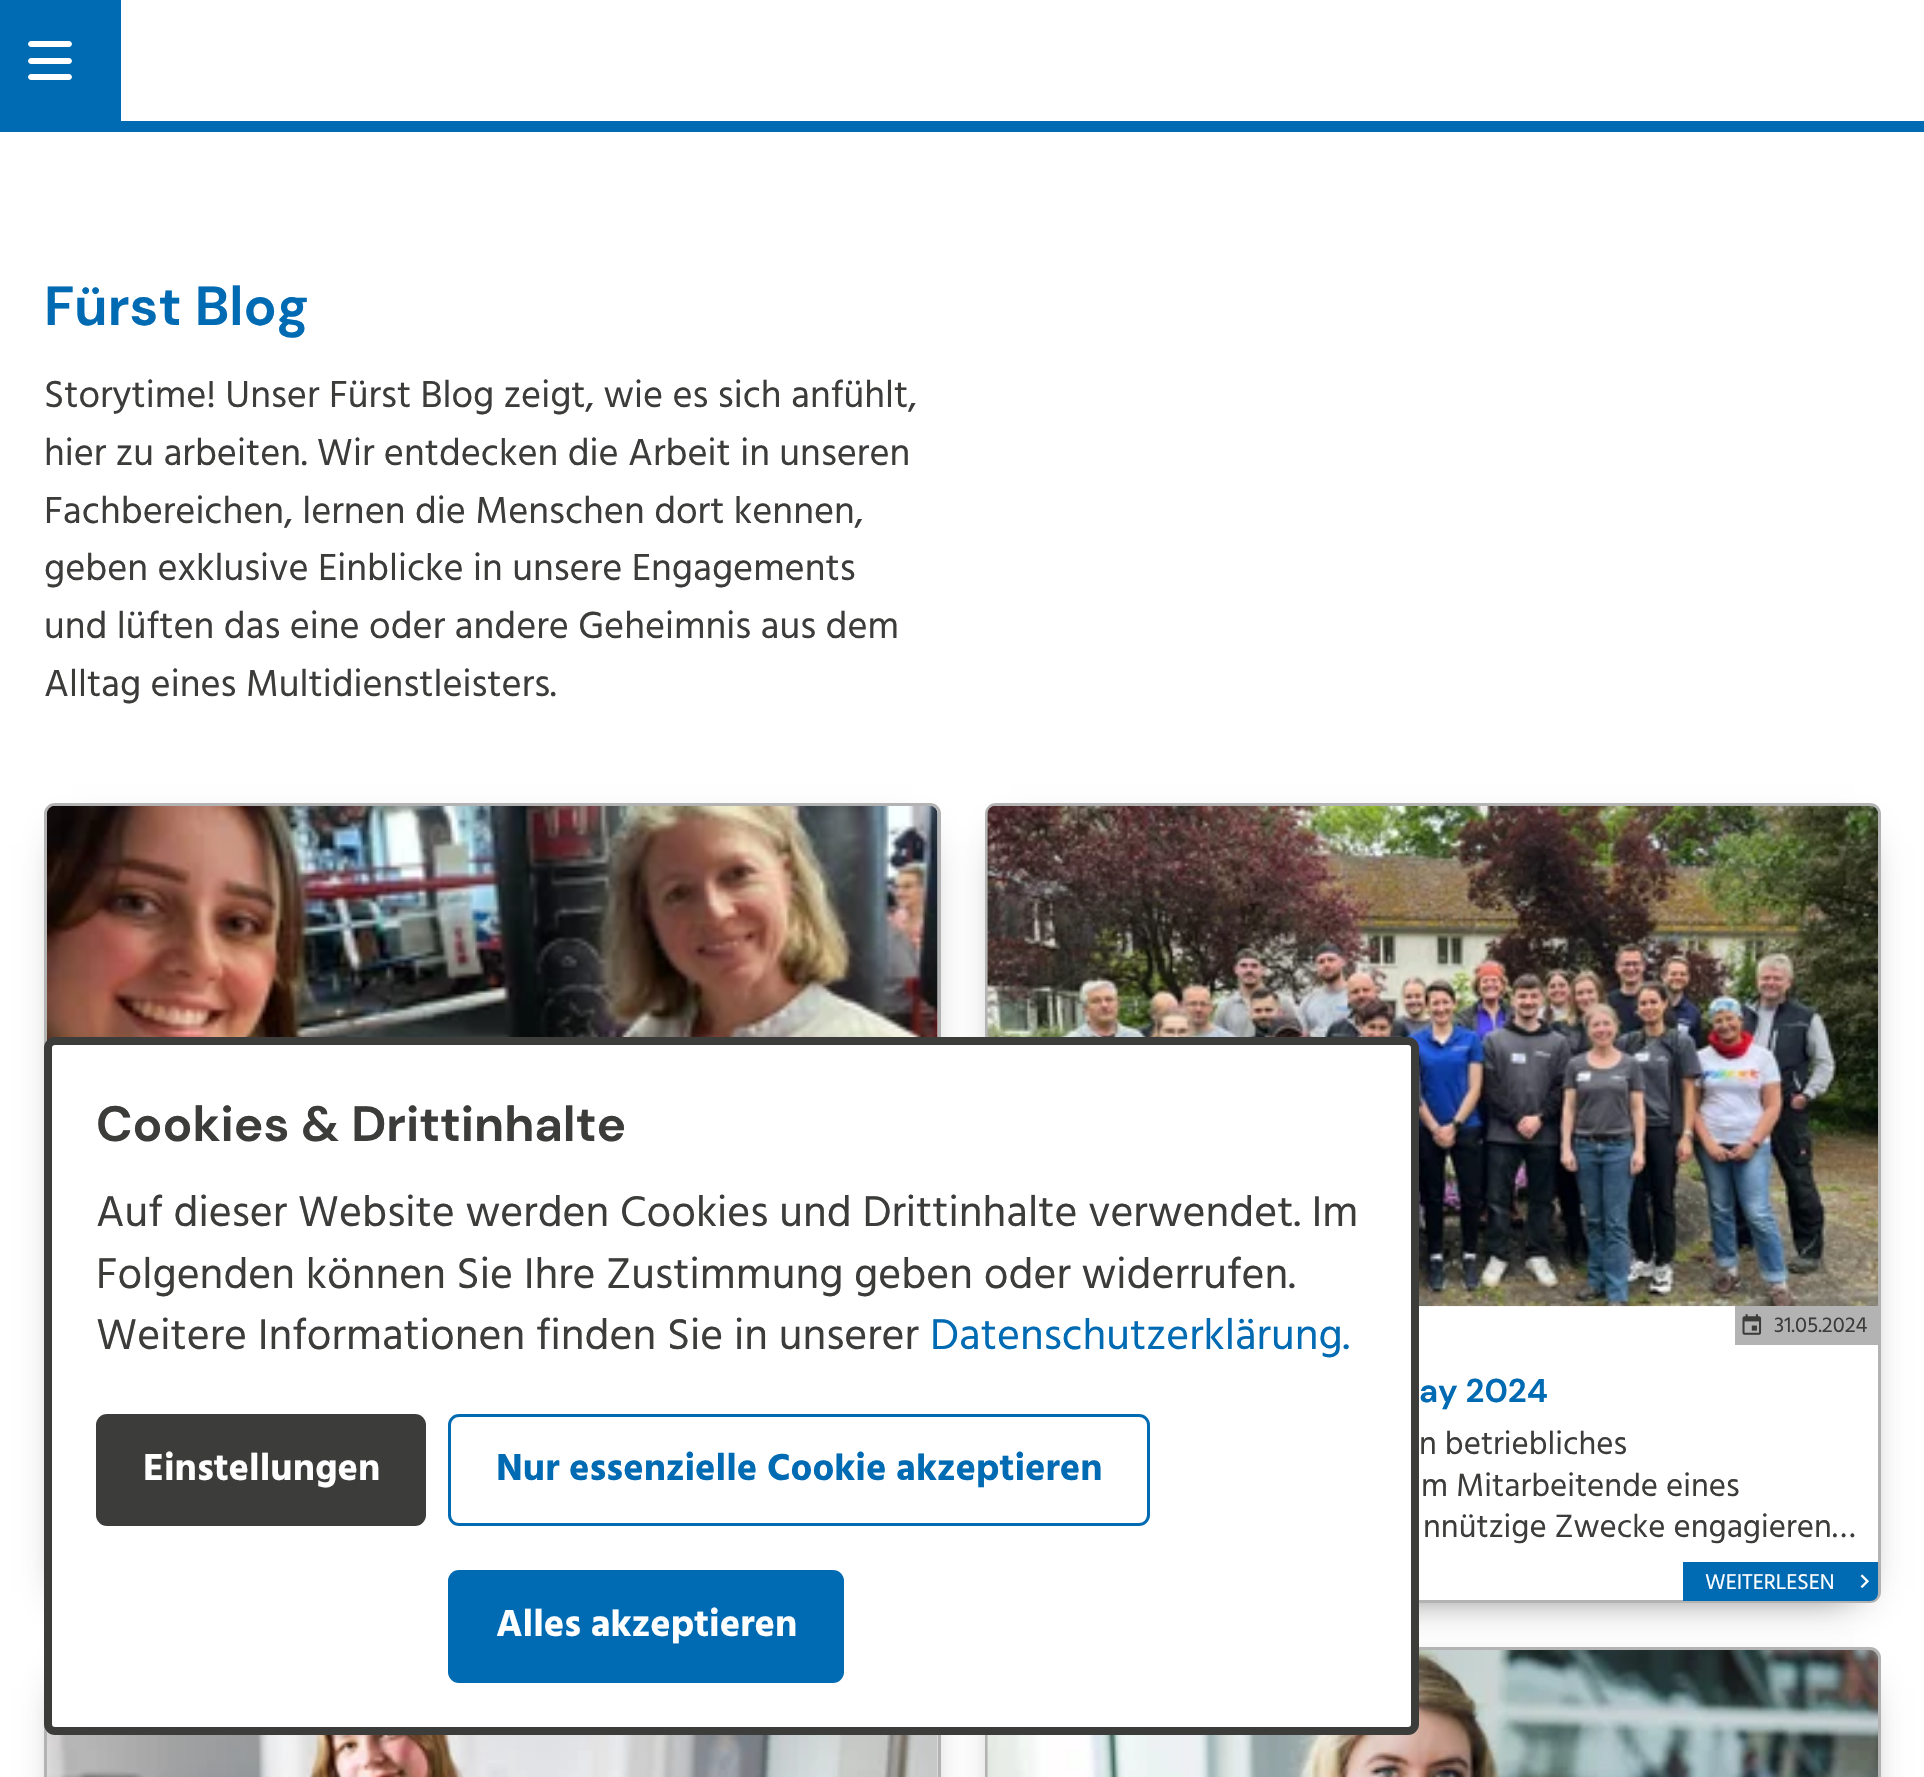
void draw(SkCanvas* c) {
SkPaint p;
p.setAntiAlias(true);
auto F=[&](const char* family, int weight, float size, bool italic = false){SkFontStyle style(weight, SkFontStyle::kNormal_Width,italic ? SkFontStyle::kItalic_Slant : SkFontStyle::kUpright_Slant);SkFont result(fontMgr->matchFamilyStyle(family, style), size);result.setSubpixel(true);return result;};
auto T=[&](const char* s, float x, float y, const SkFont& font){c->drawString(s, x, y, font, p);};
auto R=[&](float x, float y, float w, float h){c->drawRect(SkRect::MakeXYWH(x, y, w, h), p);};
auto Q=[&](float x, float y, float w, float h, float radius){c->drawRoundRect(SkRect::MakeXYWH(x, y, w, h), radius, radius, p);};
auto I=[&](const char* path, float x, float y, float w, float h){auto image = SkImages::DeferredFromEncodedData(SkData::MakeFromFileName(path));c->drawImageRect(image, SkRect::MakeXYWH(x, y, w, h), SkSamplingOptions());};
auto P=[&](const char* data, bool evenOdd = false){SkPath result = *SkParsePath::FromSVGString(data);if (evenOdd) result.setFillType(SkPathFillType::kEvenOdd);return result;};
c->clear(0xffffffff);
p.setColor(0xff006ab3);
R(0,121,1924,11);
R(0,0,121,121);
p.setColor(0xffffffff);
c->drawPath(P("M31 41h19v6h-19c-1.5 0-3-1.5-3-3c0-1.5 1.5-3 3-3z"),p);
c->drawPath(P("M50 41h19c1.5 0 3 1.5 3 3c0 1.5-1.5 3-3 3h-19z"),p);
c->drawPath(P("M31 58h19v6h-19c-1.5 0-3-1.5-3-3c0-1.5 1.5-3 3-3z"),p);
c->drawPath(P("M50 58h19c1.5 0 3 1.5 3 3c0 1.5-1.5 3-3 3h-19z"),p);
c->drawPath(P("M31 74h19v6h-19c-1.5 0-3-1.5-3-3c0-1.5 1.5-3 3-3z"),p);
c->drawPath(P("M50 74h19c1.5 0 3 1.5 3 3c0 1.5-1.5 3-3 3h-19z"),p);
auto f1 = F("DM Sans",700,55);
p.setColor(0xff006ab3);
T("Fürst Blog",44,325,f1);
auto f2 = F("Hind",400,38.5);
p.setColor(0xff3c3c3b);
T("Storytime! Unser Fürst Blog zeigt, wie es sich anfühlt,",44,407,f2);
T("hier zu arbeiten. Wir entdecken die Arbeit in unseren",44,465,f2);
T("Fachbereichen, lernen die Menschen dort kennen,",44,523,f2);
T("geben exklusive Einblicke in unsere Engagements",44,580,f2);
T("und lüften das eine oder andere Geheimnis aus dem",44,638,f2);
T("Alltag eines Multidienstleisters.",44,696,f2);
p.setMaskFilter(SkMaskFilter::MakeBlur(kNormal_SkBlurStyle, 20.5));
c->drawRect(SkRect::MakeXYWH(72,844,841,746),p);
p.setMaskFilter(nullptr);
p.setStroke(true);
p.setStrokeWidth(3);
p.setColor(0xffb3b3b3);
c->drawRoundRect(SkRect::MakeXYWH(45.5,804.5,894,797),9.5,9.5,p);
I("1.png",47,806,891,235);
c->save();
c->clipPath(P("M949 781h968v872h-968zm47 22h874c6 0 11 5 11 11v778c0 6-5 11-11 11h-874c-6 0-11-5-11-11v-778c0-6 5-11 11-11z",true),true);
p.setStroke(false);
p.setColor(0xff3c3c3b);
p.setMaskFilter(SkMaskFilter::MakeBlur(kNormal_SkBlurStyle, 20.5));
c->drawRect(SkRect::MakeXYWH(1012,844,842,746),p);
p.setMaskFilter(nullptr);
c->restore();
p.setStroke(true);
p.setColor(0xffb3b3b3);
c->drawRoundRect(SkRect::MakeXYWH(986.5,804.5,893,797),9.5,9.5,p);
I("2.png",987,806,891,501);
p.setStroke(false);
R(1735,1306,143,39);
I("3.png",1742,1314,20,21);
auto f3 = F("Hind",400,22);
p.setColor(0xff3c3c3b);
T("31.05.2024",1774,1332,f3);
auto f4 = F("DM Sans",700,33);
p.setColor(0xff006ab3);
T("ay 2024",1419,1402,f4);
auto f5 = F("Hind",400,33);
p.setColor(0xff3c3c3b);
T("n betriebliches",1419,1454,f5);
T("m Mitarbeitende eines",1421,1496,f5);
T("nnützige Zwecke engagieren…",1423,1537,f5);
p.setColor(0xff006ab3);
c->drawPath(P("M1683 1562h195v31c0 4.5-3.5 8-8 8h-187z"),p);
p.setColor(0xffffffff);
T("WEITERLESEN",1705,1589,f3);
I("4.png",1860,1574,9,14);
p.setColor(0xff3c3c3b);
p.setMaskFilter(SkMaskFilter::MakeBlur(kNormal_SkBlurStyle, 20.5));
c->drawRect(SkRect::MakeXYWH(72,1689,841,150),p);
p.setMaskFilter(nullptr);
p.setStroke(true);
p.setColor(0xffb3b3b3);
c->drawRect(SkRect::MakeXYWH(45.5,1648.5,894,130),p);
I("5.png",47,1731,891,46);
p.setStroke(false);
p.setColor(0xff3c3c3b);
p.setMaskFilter(SkMaskFilter::MakeBlur(kNormal_SkBlurStyle, 20.5));
c->drawRect(SkRect::MakeXYWH(1012,1689,842,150),p);
p.setMaskFilter(nullptr);
p.setStroke(true);
p.setColor(0xffb3b3b3);
c->drawRoundRect(SkRect::MakeXYWH(986.5,1648.5,893,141),9.5,9.5,p);
I("6.png",987,1650,891,127);
p.setStroke(false);
p.setColor(0xffffffff);
c->drawRoundRect(SkRect::MakeXYWH(48,1041,1367,690),7,7,p);
p.setStroke(true);
p.setStrokeWidth(8);
p.setColor(0xff3c3c3b);
c->drawRoundRect(SkRect::MakeXYWH(48,1041,1367,690),7,7,p);
auto f6 = F("DM Sans",700,49.5);
p.setStroke(false);
T("Cookies & Drittinhalte",96,1141,f6);
auto f7 = F("Hind",400,44);
T("Auf dieser Website werden Cookies und Drittinhalte verwendet. Im",96,1226,f7);
T("Folgenden können Sie Ihre Zustimmung geben oder widerrufen.",96,1288,f7);
T("Weitere Informationen finden Sie in unserer",96,1349,f7);
p.setColor(0xff006ab3);
T("Datenschutzerklärung.",930,1349,f7);
p.setColor(0xff3c3c3b);
Q(96,1414,330,112,11);
auto f8 = F("Hind",700,38.5);
p.setColor(0xffffffff);
T("Einstellungen",143,1480,f8);
p.setStroke(true);
p.setStrokeWidth(3);
p.setColor(0xff006ab3);
c->drawRoundRect(SkRect::MakeXYWH(449.5,1415.5,699,109),9.5,9.5,p);
p.setStroke(false);
T("Nur essenzielle Cookie akzeptieren",496,1480,f8);
Q(448,1570,396,113,11);
p.setColor(0xffffffff);
T("Alles akzeptieren",496,1636,f8);
}
